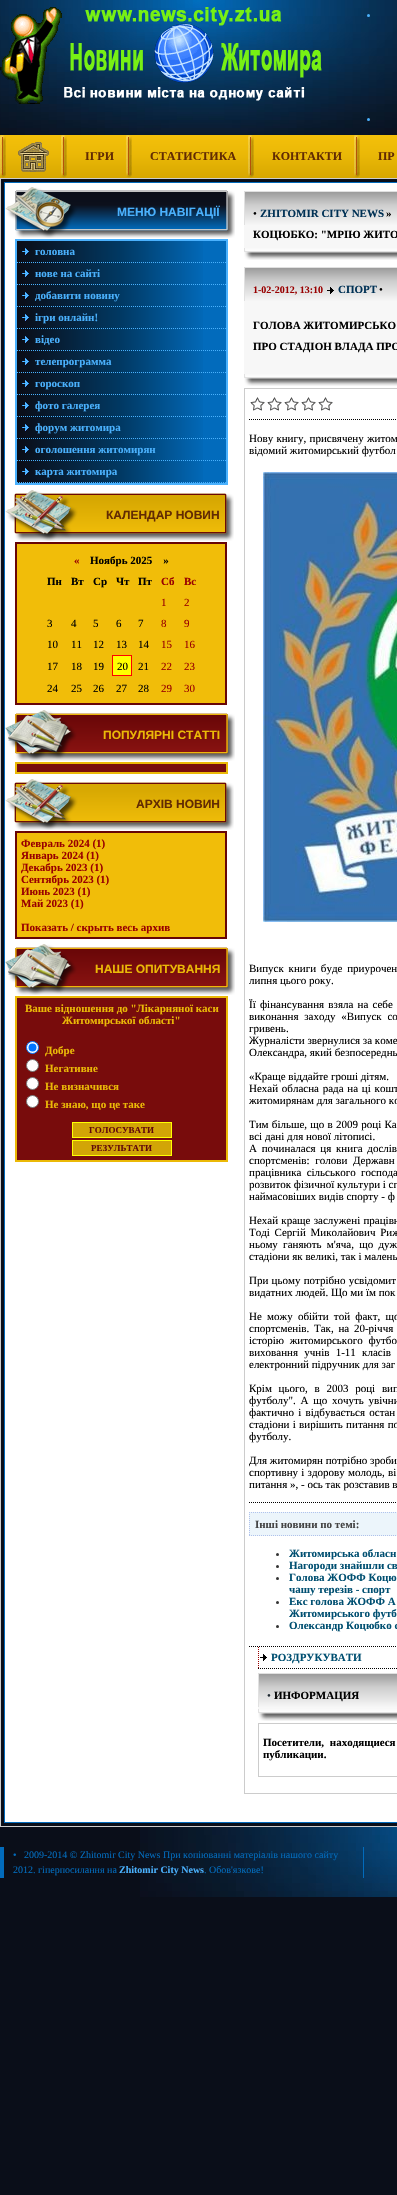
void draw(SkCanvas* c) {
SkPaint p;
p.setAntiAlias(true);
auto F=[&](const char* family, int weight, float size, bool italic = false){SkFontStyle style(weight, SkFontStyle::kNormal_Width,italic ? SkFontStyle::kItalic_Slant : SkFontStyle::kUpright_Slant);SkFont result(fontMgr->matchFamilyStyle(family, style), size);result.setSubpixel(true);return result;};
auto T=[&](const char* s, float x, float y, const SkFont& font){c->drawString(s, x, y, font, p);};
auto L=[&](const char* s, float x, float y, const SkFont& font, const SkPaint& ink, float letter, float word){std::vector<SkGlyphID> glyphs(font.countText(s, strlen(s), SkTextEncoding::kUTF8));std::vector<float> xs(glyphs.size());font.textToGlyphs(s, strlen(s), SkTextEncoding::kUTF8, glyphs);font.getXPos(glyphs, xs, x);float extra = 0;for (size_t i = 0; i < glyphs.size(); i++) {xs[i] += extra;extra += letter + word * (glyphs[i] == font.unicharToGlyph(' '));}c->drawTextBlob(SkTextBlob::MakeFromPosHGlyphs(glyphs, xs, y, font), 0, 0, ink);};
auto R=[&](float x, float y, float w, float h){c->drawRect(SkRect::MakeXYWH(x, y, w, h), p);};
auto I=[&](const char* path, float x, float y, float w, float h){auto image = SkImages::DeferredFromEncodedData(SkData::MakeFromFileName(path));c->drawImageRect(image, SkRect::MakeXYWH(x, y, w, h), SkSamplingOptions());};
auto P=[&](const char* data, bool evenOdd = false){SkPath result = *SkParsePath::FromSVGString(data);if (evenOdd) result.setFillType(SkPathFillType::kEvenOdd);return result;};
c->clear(0xff0a0e19);
I("1.png",0,0,397,135);
I("2.png",0,7,322,97);
p.setColor(0xff4ab1fd);
c->drawCircle(368.5,15.5,1.5,p);
c->drawCircle(368.5,119.5,1.5,p);
I("3.png",6,135,391,43);
I("4.png",0,135,6,43);
I("4.png",61,135,6,43);
I("5.png",18,142,31,30);
I("4.png",126,135,6,43);
auto f1 = F("Liberation Serif",700,12);
p.setColor(0xff622b02);
T("ІГРИ",85,160,f1);
I("4.png",248,135,6,43);
T("СТАТИСТИКА",150,160,f1);
I("4.png",354,135,6,43);
T("КОНТАКТИ",272,160,f1);
T("ПР",378,160,f1);
p.setStroke(true);
p.setStrokeWidth(1);
p.setColor(0xffcccccc);
c->drawRect(SkRect::MakeXYWH(.5,178.5,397,1648),p);
p.setStroke(false);
p.setColor(0xffffffff);
c->drawRect(SkRect::MakeXYWH(4.5,182.5,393,1640),p);
p.setStroke(true);
p.setColor(0xff026bbc);
c->drawRect(SkRect::MakeXYWH(4.5,182.5,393,1640),p);
I("6.png",5,187,230,51);
auto f2 = F("Liberation Sans",700,12);
p.setStroke(false);
p.setColor(0xff4ab1fd);
T("МЕНЮ НАВІГАЦІЇ",117,216,f2);
p.setColor(0xff026bbc);
R(203,241,23,242);
I("7.png",17,241,186,242);
p.setStroke(true);
p.setStrokeWidth(2);
p.setColor(0xff4ab1fd);
c->drawRect(SkRect::MakeXYWH(16,240,211,244),p);
I("8.png",22,248,7,7);
p.setStrokeWidth(1);
p.setPathEffect(SkDashPathEffect::Make({{1,1}}, 0));
c->drawPath(P("M17 262.5h209"),p);
p.setPathEffect(nullptr);
auto f3 = F("Liberation Serif",700,11);
p.setStroke(false);
T("головна",35,255,f3);
I("8.png",22,270,7,7);
p.setStroke(true);
p.setPathEffect(SkDashPathEffect::Make({{1,1}}, 0));
c->drawPath(P("M17 284.5h209"),p);
p.setPathEffect(nullptr);
p.setStroke(false);
T("нове на сайті",35,277,f3);
I("8.png",22,292,7,7);
p.setStroke(true);
p.setPathEffect(SkDashPathEffect::Make({{1,1}}, 0));
c->drawPath(P("M17 306.5h209"),p);
p.setPathEffect(nullptr);
p.setStroke(false);
T("добавити новину",35,299,f3);
I("8.png",22,314,7,7);
p.setStroke(true);
p.setPathEffect(SkDashPathEffect::Make({{1,1}}, 0));
c->drawPath(P("M17 328.5h209"),p);
p.setPathEffect(nullptr);
p.setStroke(false);
T("ігри онлайн!",35,321,f3);
I("8.png",22,336,7,7);
p.setStroke(true);
p.setPathEffect(SkDashPathEffect::Make({{1,1}}, 0));
c->drawPath(P("M17 350.5h209"),p);
p.setPathEffect(nullptr);
p.setStroke(false);
T("відео",35,343,f3);
I("8.png",22,358,7,7);
p.setStroke(true);
p.setPathEffect(SkDashPathEffect::Make({{1,1}}, 0));
c->drawPath(P("M17 372.5h209"),p);
p.setPathEffect(nullptr);
p.setStroke(false);
T("телепрограмма",35,365,f3);
I("8.png",22,380,7,7);
p.setStroke(true);
p.setPathEffect(SkDashPathEffect::Make({{1,1}}, 0));
c->drawPath(P("M17 394.5h209"),p);
p.setPathEffect(nullptr);
p.setStroke(false);
T("гороскоп",35,387,f3);
I("8.png",22,402,7,7);
p.setStroke(true);
p.setPathEffect(SkDashPathEffect::Make({{1,1}}, 0));
c->drawPath(P("M17 416.5h209"),p);
p.setPathEffect(nullptr);
p.setStroke(false);
T("фото галерея",35,409,f3);
I("8.png",22,424,7,7);
p.setStroke(true);
p.setPathEffect(SkDashPathEffect::Make({{1,1}}, 0));
c->drawPath(P("M17 438.5h209"),p);
p.setPathEffect(nullptr);
p.setStroke(false);
T("форум житомира",35,431,f3);
I("8.png",22,446,7,7);
p.setStroke(true);
p.setPathEffect(SkDashPathEffect::Make({{1,1}}, 0));
c->drawPath(P("M17 460.5h209"),p);
p.setPathEffect(nullptr);
p.setStroke(false);
T("оголошення житомирян",35,453,f3);
I("8.png",22,468,7,7);
p.setStroke(true);
p.setPathEffect(SkDashPathEffect::Make({{1,1}}, 0));
c->drawPath(P("M17 482.5h209"),p);
p.setPathEffect(nullptr);
p.setStroke(false);
T("карта житомира",35,475,f3);
I("9.png",5,490,229,51);
p.setColor(0xff622b02);
T("КАЛЕНДАР НОВИН",106,519,f2);
p.setColor(0xfff1bd09);
c->drawRect(SkRect::MakeXYWH(16,543,210,161),p);
p.setStroke(true);
p.setStrokeWidth(2);
p.setColor(0xff670506);
c->drawRect(SkRect::MakeXYWH(16,543,210,161),p);
p.setStroke(false);
p.setColor(0xff990000);
T("«",74,564,f3);
p.setColor(0xff000000);
T("Ноябрь 2025    »",90,564,f3);
T("Пн",47,585,f3);
T("Вт",71,585,f3);
T("Ср",93,585,f3);
T("Чт",116,585,f3);
T("Пт",138,585,f3);
p.setColor(0xff990000);
T("Сб",161,585,f3);
T("Вс",184,585,f3);
auto f4 = F("Liberation Serif",400,11);
T("1",161,606,f4);
T("2",184,606,f4);
p.setColor(0xff000000);
T("3",47,627,f4);
T("4",71,627,f4);
T("5",93,627,f4);
T("6",116,627,f4);
T("7",138,627,f4);
p.setColor(0xff990000);
T("8",161,627,f4);
T("9",184,627,f4);
p.setColor(0xff000000);
T("10",47,648,f4);
T("11",71,648,f4);
T("12",93,648,f4);
T("13",116,648,f4);
T("14",138,648,f4);
p.setColor(0xff990000);
T("15",161,648,f4);
T("16",184,648,f4);
p.setColor(0xff000000);
T("17",47,670,f4);
T("18",71,670,f4);
T("19",93,670,f4);
p.setColor(0xffffff00);
c->drawRect(SkRect::MakeXYWH(112.5,655.5,19,20),p);
p.setStroke(true);
p.setStrokeWidth(1);
p.setColor(0xffff0000);
c->drawRect(SkRect::MakeXYWH(112.5,655.5,19,20),p);
p.setStroke(false);
p.setColor(0xff000000);
T("20",117,670,f4);
T("21",138,670,f4);
p.setColor(0xff990000);
T("22",161,670,f4);
T("23",184,670,f4);
p.setColor(0xff000000);
T("24",47,692,f4);
T("25",71,692,f4);
T("26",93,692,f4);
T("27",116,692,f4);
T("28",138,692,f4);
p.setColor(0xff990000);
T("29",161,692,f4);
T("30",184,692,f4);
I("10.png",5,710,230,51);
p.setColor(0xffebb907);
T("ПОПУЛЯРНІ СТАТТІ",103,739,f2);
p.setColor(0xff780c0c);
c->drawRect(SkRect::MakeXYWH(16,763,211,10),p);
p.setStroke(true);
p.setStrokeWidth(2);
p.setColor(0xffebb907);
c->drawRect(SkRect::MakeXYWH(16,763,211,10),p);
I("9.png",5,779,229,51);
p.setStroke(false);
p.setColor(0xff622b02);
T("АРХІВ НОВИН",136,808,f2);
p.setColor(0xfff1bd09);
c->drawRect(SkRect::MakeXYWH(16,832,210,106),p);
p.setStroke(true);
p.setColor(0xff670506);
c->drawRect(SkRect::MakeXYWH(16,832,210,106),p);
p.setStroke(false);
p.setColor(0xff990000);
T("Февраль 2024 (1)",21,847,f3);
T("Январь 2024 (1)",21,859,f3);
T("Декабрь 2023 (1)",21,871,f3);
T("Сентябрь 2023 (1)",21,883,f3);
T("Июнь 2023 (1)",21,895,f3);
T("Май 2023 (1)",21,907,f3);
T("Показать / скрыть весь архив",21,931,f3);
I("10.png",5,944,230,51);
p.setColor(0xffebb907);
T("НАШЕ ОПИТУВАННЯ",95,973,f2);
p.setColor(0xff780c0c);
c->drawRect(SkRect::MakeXYWH(16,997,211,164),p);
p.setStroke(true);
p.setColor(0xffebb907);
c->drawRect(SkRect::MakeXYWH(16,997,211,164),p);
p.setStroke(false);
T("Ваше відношення до \"Лікарняної каси",25,1012,f3);
T("Житомирської області\"",62,1024,f3);
p.setColor(0xffffffff);
c->drawCircle(32.5,1047.5,6,p);
p.setStroke(true);
p.setStrokeWidth(1);
p.setColor(0xff0075ff);
c->drawCircle(32.5,1047.5,6,p);
p.setStroke(false);
c->drawCircle(32.5,1047.5,4,p);
p.setColor(0xffebb907);
T("Добре",45,1054,f3);
p.setColor(0xffffffff);
c->drawCircle(32.5,1065.5,6,p);
p.setStroke(true);
p.setColor(0xff767676);
c->drawCircle(32.5,1065.5,6,p);
p.setStroke(false);
p.setColor(0xffebb907);
T("Негативне",45,1072,f3);
p.setColor(0xffffffff);
c->drawCircle(32.5,1083.5,6,p);
p.setStroke(true);
p.setColor(0xff767676);
c->drawCircle(32.5,1083.5,6,p);
p.setStroke(false);
p.setColor(0xffebb907);
T("Не визначився",45,1090,f3);
p.setColor(0xffffffff);
c->drawCircle(32.5,1101.5,6,p);
p.setStroke(true);
p.setColor(0xff767676);
c->drawCircle(32.5,1101.5,6,p);
p.setStroke(false);
p.setColor(0xffebb907);
T("Не знаю, що це таке",45,1108,f3);
p.setColor(0xffd2a506);
c->drawRect(SkRect::MakeXYWH(72.5,1122.5,99,15),p);
p.setStroke(true);
p.setColor(0xffffff00);
c->drawRect(SkRect::MakeXYWH(72.5,1122.5,99,15),p);
auto f5 = F("Liberation Serif",700,9);
p.setStroke(false);
p.setColor(0xff610a0a);
T("ГОЛОСУВАТИ",89,1133,f5);
p.setColor(0xffd2a506);
c->drawRect(SkRect::MakeXYWH(72.5,1140.5,99,15),p);
p.setStroke(true);
p.setColor(0xffffff00);
c->drawRect(SkRect::MakeXYWH(72.5,1140.5,99,15),p);
p.setStroke(false);
p.setColor(0xff610a0a);
T("РЕЗУЛЬТАТИ",91,1151,f5);
p.setColor(0xfff7f7f7);
R(244,225,153,23);
I("11.png",244,191,153,34);
p.setColor(0xff000000);
T("•",253,217,f4);
p.setColor(0xff003155);
T("ZHITOMIR CITY NEWS",260,217,f3);
p.setColor(0xff000000);
T("»",386,217,f3);
T("КОЦЮБКО: \"МРІЮ ЖИТО",253,238,f3);
I("12.png",244,248,153,12);
p.setColor(0xfff7f7f7);
R(244,301,153,73);
I("11.png",244,267,153,34);
auto f6 = F("Liberation Serif",700,10);
p.setColor(0xff990000);
T("1-02-2012, 13:10",253,293,f6);
I("13.png",327,287,7,7);
p.setColor(0xff003155);
T("СПОРТ",338,293,f3);
p.setColor(0xff000000);
T("•",379,293,f4);
T("ГОЛОВА ЖИТОМИРСЬКО",253,329,f3);
T("ПРО СТАДІОН ВЛАДА ПРО",253,350,f3);
I("12.png",244,374,153,12);
p.setStroke(true);
p.setColor(0xffcccccc);
c->drawRect(SkRect::MakeXYWH(244.5,388.5,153,1405),p);
I("14.png",250,397,83,14);
p.setColor(0xff000000);
p.setPathEffect(SkDashPathEffect::Make({{1,1}}, 0));
c->drawPath(P("M249 419.5h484"),p);
p.setPathEffect(nullptr);
p.setPathEffect(SkDashPathEffect::Make({{1,1}}, 0));
c->drawPath(P("M249 1502.5h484"),p);
p.setPathEffect(nullptr);
p.setStroke(false);
L("Нову книгу, присвячену житом",249,442,f4,p,0,.5);
T("відомий житомирський футбол",249,454,f4);
I("15.png",263,472,134,450);
L("Випуск книги буде приурочен",249,972,f4,p,0,2);
T("липня цього року.",249,984,f4);
L("Її фінансування взяла на себе",249,1008,f4,p,0,1.5);
L("виконання заходу «Випуск со",249,1020,f4,p,0,3);
T("гривень.",249,1032,f4);
T("Журналісти звернулися за коме",249,1044,f4);
T("Олександра, який безпосереднь",249,1056,f4);
T("«Краще віддайте гроші дітям.",249,1080,f4);
L("Нехай обласна рада на ці кошт",249,1092,f4,p,0,1);
T("житомирянам для загального ко",249,1104,f4);
L("Тим більше, що в 2009 році Ка",249,1128,f4,p,0,.5);
T("всі дані для нової літописі.",249,1140,f4);
L("А починалася ця книга дослів",249,1152,f4,p,0,2);
L("спортсменів: голови Державн",249,1164,f4,p,0,3);
L("працівника сільського господа",249,1176,f4,p,0,2.5);
T("розвиток фізичної культури і сп",249,1188,f4);
T("наймасовіших видів спорту - ф",249,1200,f4);
L("Нехай краще заслужені працівн",249,1224,f4,p,0,.5);
L("Тоді Сергій Миколайович Риж",249,1236,f4,p,0,2);
L("ньому ганяють м'яча, що дуж",249,1248,f4,p,0,2.5);
T("стадіони як великі, так і малень",249,1260,f4);
L("При цьому потрібно усвідомит",249,1284,f4,p,0,.5);
T("видатних людей. Що ми їм пок",249,1296,f4);
L("Не можу обійти той факт, що",249,1320,f4,p,0,2.5);
L("спортсменів. Так, на 20-річчя",249,1332,f4,p,0,2);
L("історію житомирського футбо",249,1344,f4,p,0,3);
L("виховання учнів 1-11 класів",249,1356,f4,p,0,3.5);
T("електронний підручник для заг",249,1368,f4);
L("Крім цього, в 2003 році вип",249,1392,f4,p,0,4);
L("футболу\". А що хочуть увічни",249,1404,f4,p,0,2);
L("фактично і відбувається остан",249,1416,f4,p,0,1.5);
L("стадіони і вирішить питання по",249,1428,f4,p,0,.5);
T("футболу.",249,1440,f4);
T("Для житомирян потрібно зроби",249,1464,f4);
L("спортивну і здорову молодь, ві",249,1476,f4,p,0,.5);
T("питання », - ось так розставив в",249,1488,f4);
p.setStroke(true);
p.setPathEffect(SkDashPathEffect::Make({{1,1}}, 0));
c->drawPath(P("M249 1646.5h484"),p);
p.setPathEffect(nullptr);
p.setStroke(false);
p.setColor(0xffecf5fb);
R(249,1512,148,24);
p.setStroke(true);
p.setColor(0xffafc2ec);
p.setPathEffect(SkDashPathEffect::Make({{1,1}}, 0));
c->drawPath(P("M249 1512.5h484"),p);
p.setPathEffect(nullptr);
p.setPathEffect(SkDashPathEffect::Make({{1,1}}, 0));
c->drawPath(P("M249 1535.5h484"),p);
p.setPathEffect(nullptr);
p.setPathEffect(SkDashPathEffect::Make({{1,1}}, 0));
c->drawPath(P("M249.5 1512v24"),p);
p.setPathEffect(nullptr);
p.setStroke(false);
p.setColor(0xff444444);
T("Інші новини по темі:",255,1528,f3);
p.setColor(0xff333333);
c->drawCircle(277.5,1554.5,1.5,p);
p.setColor(0xff004f71);
T("Житомирська обласн",289,1557,f3);
p.setColor(0xff333333);
c->drawCircle(277.5,1566.5,1.5,p);
p.setColor(0xff004f71);
T("Нагороди знайшли св",289,1569,f3);
p.setColor(0xff333333);
c->drawCircle(277.5,1578.5,1.5,p);
p.setColor(0xff004f71);
T("Голова ЖОФФ Коцю",289,1581,f3);
T("чашу терезів - спорт",289,1593,f3);
p.setColor(0xff333333);
c->drawCircle(277.5,1602.5,1.5,p);
p.setColor(0xff004f71);
T("Екс голова ЖОФФ А",289,1605,f3);
T("Житомирського футб",289,1617,f3);
p.setColor(0xff333333);
c->drawCircle(277.5,1626.5,1.5,p);
p.setColor(0xff004f71);
T("Олександр Коцюбко с",289,1629,f3);
I("16.png",260,1654,7,7);
p.setStroke(true);
p.setColor(0xff000000);
p.setPathEffect(SkDashPathEffect::Make({{1,1}}, 0));
c->drawPath(P("M258 1668.5h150"),p);
p.setPathEffect(nullptr);
p.setColor(0xff990000);
p.setPathEffect(SkDashPathEffect::Make({{1,1}}, 0));
c->drawPath(P("M258.5 1647v22"),p);
p.setPathEffect(nullptr);
p.setStroke(false);
p.setColor(0xff004f71);
T("РОЗДРУКУВАТИ",271,1661,f3);
p.setColor(0xfff7f7f7);
R(258,1707,139,2);
I("17.png",258,1673,139,34);
p.setColor(0xff1f2932);
T("•",267,1699,f4);
p.setColor(0xff000000);
T("ИНФОРМАЦИЯ",274,1699,f3);
I("18.png",258,1709,139,12);
p.setStroke(true);
p.setColor(0xffcccccc);
c->drawRect(SkRect::MakeXYWH(258.5,1723.5,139,53),p);
p.setStroke(false);
p.setColor(0xff000000);
L("Посетители, находящиеся",263,1746,f3,p,0,3);
T("публикации.",263,1758,f3);
I("19.png",140,1827,257,70);
p.setColor(0xff026bbc);
R(363,1847,1,31);
R(0,1847,4,31);
auto f7 = F("Liberation Serif",400,10);
T("•   2009-2014 © Zhitomir City News При копіюванні матеріалів нашого сайту",13,1858,f7);
T("2012. гіперпосилання на",13,1873,f7);
p.setColor(0xff4ab1fd);
T("Zhitomir City News",119,1873,f6);
p.setColor(0xff026bbc);
T(". Обов'язкове!",204,1873,f7);
}
